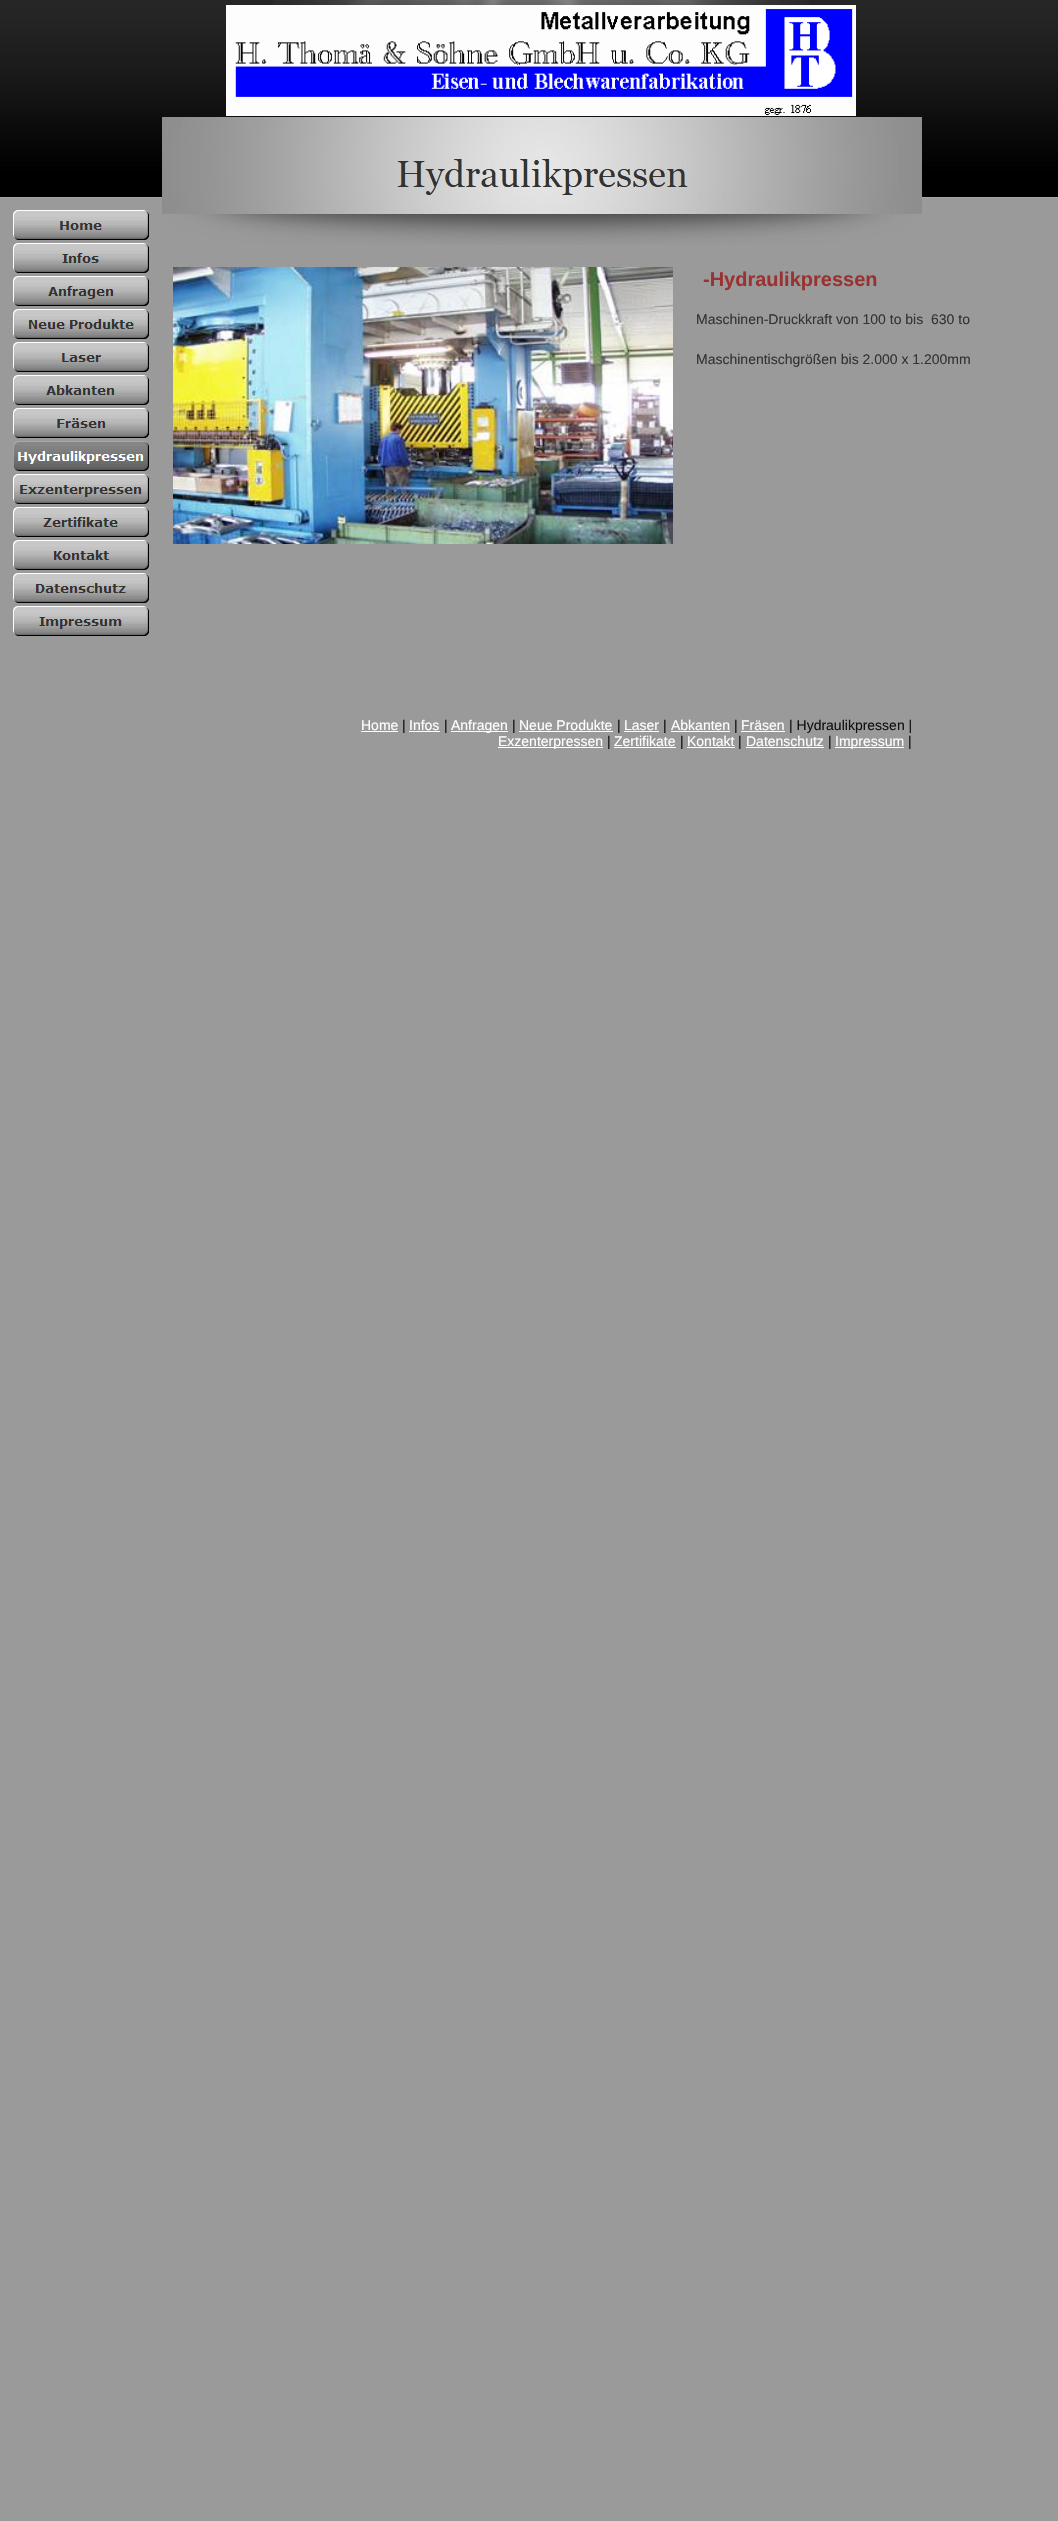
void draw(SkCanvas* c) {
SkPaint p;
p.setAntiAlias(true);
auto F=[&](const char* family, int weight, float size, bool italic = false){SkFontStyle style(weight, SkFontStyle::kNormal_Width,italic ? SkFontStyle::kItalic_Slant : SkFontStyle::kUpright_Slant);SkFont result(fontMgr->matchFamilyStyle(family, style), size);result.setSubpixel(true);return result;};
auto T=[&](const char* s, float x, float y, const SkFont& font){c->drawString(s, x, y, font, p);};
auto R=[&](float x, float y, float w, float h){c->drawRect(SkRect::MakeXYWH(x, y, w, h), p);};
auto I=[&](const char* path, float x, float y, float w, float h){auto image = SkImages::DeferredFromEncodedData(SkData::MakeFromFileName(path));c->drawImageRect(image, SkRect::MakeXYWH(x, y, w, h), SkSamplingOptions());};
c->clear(0xff9a9a9a);
I("1.png",0,0,1058,198);
I("2.png",13,210,136,30);
I("3.png",13,243,136,30);
I("4.png",13,276,136,30);
I("5.png",13,309,136,30);
I("6.png",13,342,136,30);
I("7.png",13,375,136,30);
I("8.png",13,408,136,30);
I("9.png",13,441,136,30);
I("10.png",13,474,136,30);
I("11.png",13,507,136,30);
I("12.png",13,540,136,30);
I("13.png",13,573,136,30);
I("14.png",13,606,136,30);
I("15.png",273,0,536,5);
I("16.png",226,5,630,111);
I("17.png",162,117,760,128);
I("18.png",173,267,500,277);
auto f1 = F("Liberation Sans",700,20);
p.setColor(0xff993333);
T("-Hydraulikpressen",703,286,f1);
auto f2 = F("Liberation Sans",400,14);
p.setColor(0xff333333);
T("Maschinen-Druckkraft von 100 to bis  630 to",696,324,f2);
T("Maschinentischgrößen bis 2.000 x 1.200mm",696,364,f2);
p.setColor(0xffffffff);
T("Home",361,730,f2);
R(361,731,37,1);
p.setColor(0xff101010);
T("|",402,730,f2);
p.setColor(0xffffffff);
T("Infos",409,730,f2);
R(409,731,31,1);
p.setColor(0xff101010);
T("|",444,730,f2);
p.setColor(0xffffffff);
R(451,731,57,1);
T("Anfragen",451,730,f2);
p.setColor(0xff101010);
T("|",512,730,f2);
p.setColor(0xffffffff);
T("Neue Produkte",519,730,f2);
R(519,731,94,1);
p.setColor(0xff101010);
T("|",617,730,f2);
p.setColor(0xffffffff);
T("Laser",624,730,f2);
R(624,731,35,1);
p.setColor(0xff101010);
T("|",663,730,f2);
p.setColor(0xffffffff);
T("Abkanten",671,730,f2);
R(671,731,59,1);
p.setColor(0xff101010);
T("|",734,730,f2);
p.setColor(0xffffffff);
T("Fräsen",741,730,f2);
R(741,731,44,1);
p.setColor(0xff101010);
T("| Hydraulikpressen |",789,730,f2);
p.setColor(0xffffffff);
R(498,747,105,1);
T("Exzenterpressen",498,746,f2);
p.setColor(0xff101010);
T("|",607,746,f2);
p.setColor(0xffffffff);
T("Zertifikate",614,746,f2);
R(614,747,62,1);
p.setColor(0xff101010);
T("|",680,746,f2);
p.setColor(0xffffffff);
T("Kontakt",687,746,f2);
R(687,747,48,1);
p.setColor(0xff101010);
T("|",738,746,f2);
p.setColor(0xffffffff);
T("Datenschutz",746,746,f2);
R(746,747,78,1);
p.setColor(0xff101010);
T("|",828,746,f2);
p.setColor(0xffffffff);
R(835,747,69,1);
T("Impressum",835,746,f2);
p.setColor(0xff101010);
T("|",908,746,f2);
}
